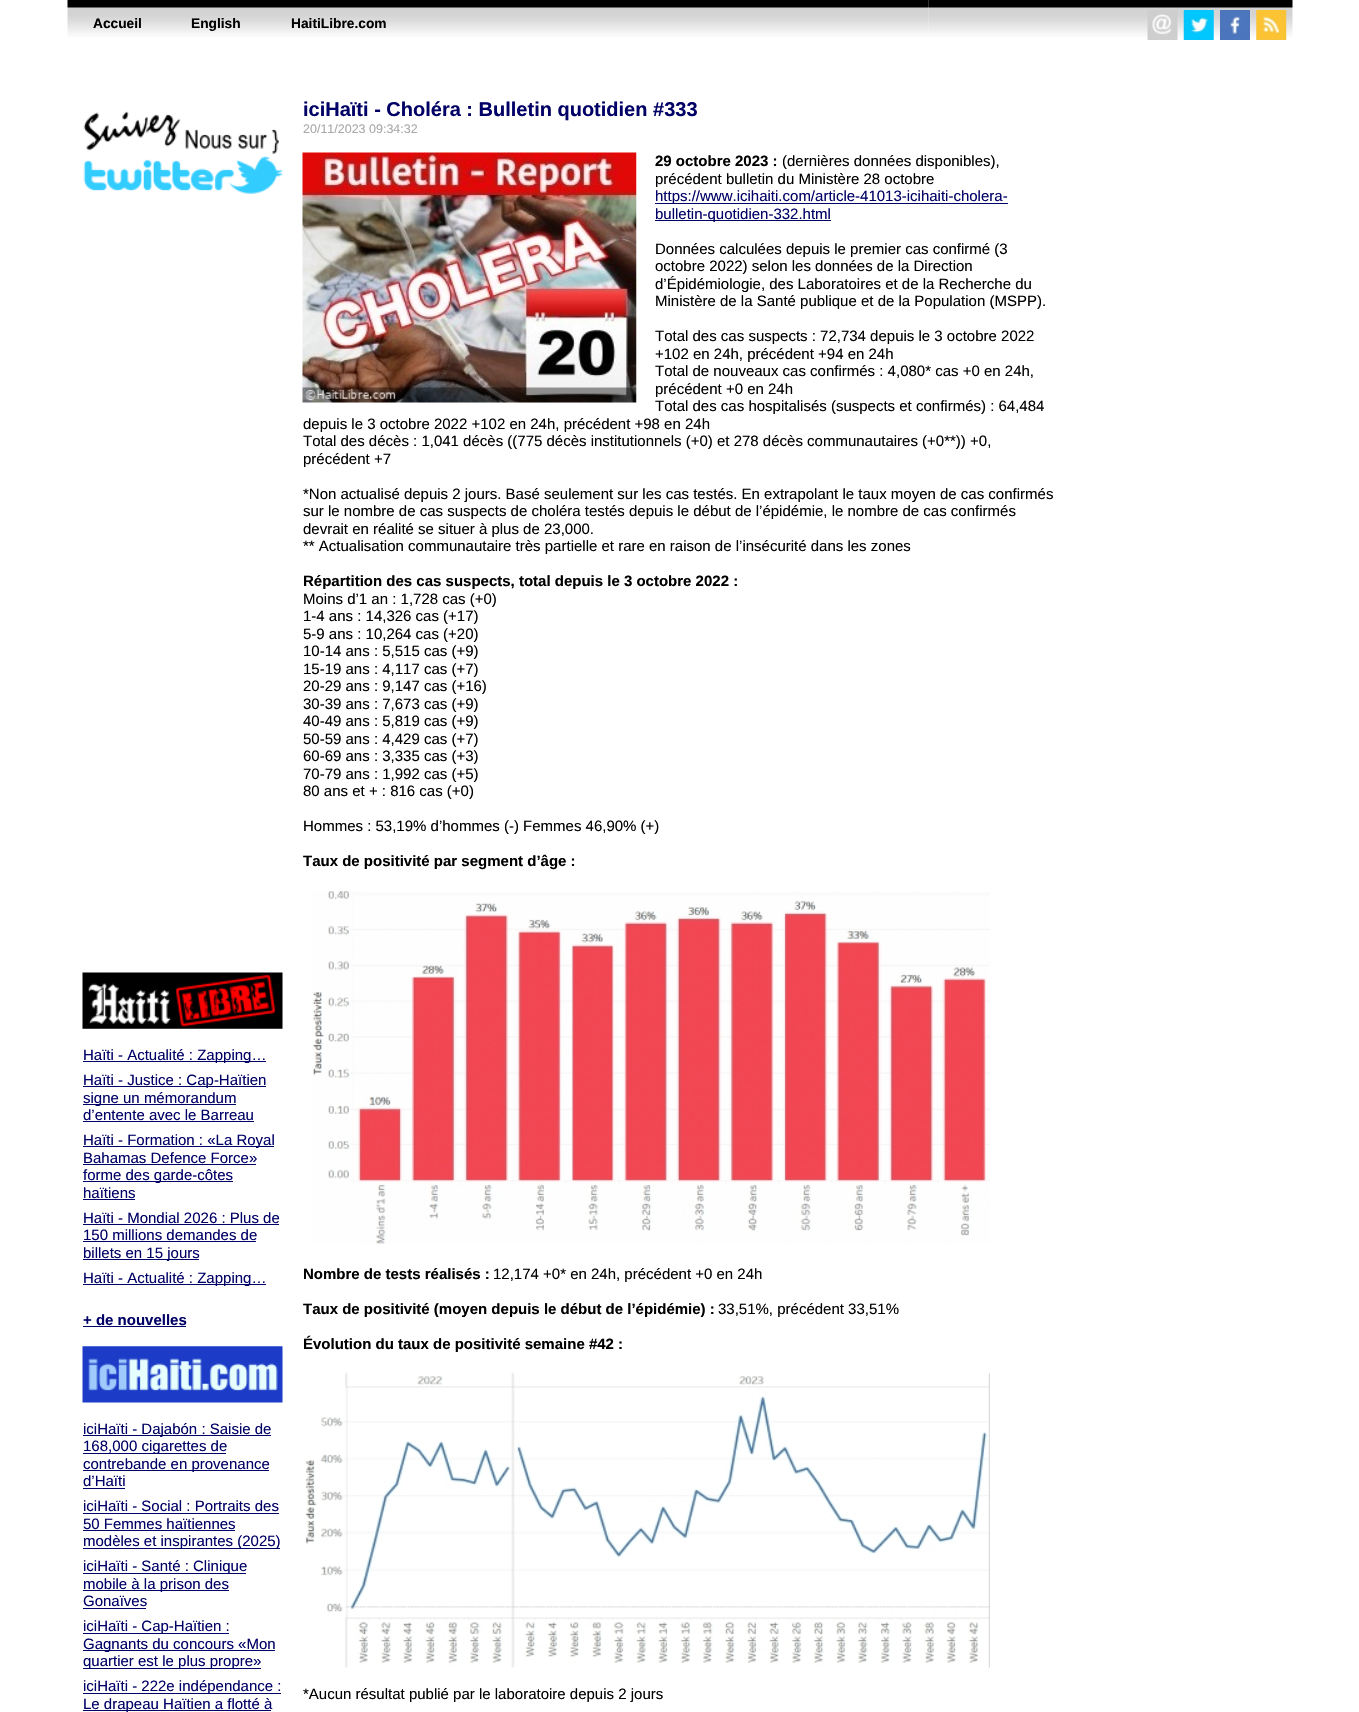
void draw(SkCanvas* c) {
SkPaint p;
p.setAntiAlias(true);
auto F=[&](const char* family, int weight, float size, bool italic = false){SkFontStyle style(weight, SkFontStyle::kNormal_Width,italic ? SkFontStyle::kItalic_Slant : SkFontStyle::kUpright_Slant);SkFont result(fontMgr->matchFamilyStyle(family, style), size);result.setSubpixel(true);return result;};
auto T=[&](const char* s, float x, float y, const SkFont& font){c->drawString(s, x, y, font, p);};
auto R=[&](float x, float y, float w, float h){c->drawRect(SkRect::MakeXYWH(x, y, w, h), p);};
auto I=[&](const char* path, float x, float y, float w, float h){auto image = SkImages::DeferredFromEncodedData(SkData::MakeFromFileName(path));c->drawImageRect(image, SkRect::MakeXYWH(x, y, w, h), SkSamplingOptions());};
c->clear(0xffffffff);
I("1.png",67,0,862,37);
auto f1 = F("Liberation Sans",700,13.75);
p.setColor(0xff000000);
T("Accueil",93,28,f1);
T("English",191,28,f1);
T("HaitiLibre.com",291,28,f1);
I("2.png",928,0,365,37);
I("3.png",1147,10,31,30);
I("4.png",1183,10,31,30);
I("5.png",1220,10,30,30);
I("6.png",1256,10,31,30);
I("7.png",83,111,200,83);
I("8.png",82,972,201,57);
p.setColor(0xff000066);
R(83,1061,183,1);
auto f2 = F("Liberation Sans",400,15);
T("Haïti - Actualité : Zapping…",83,1060,f2);
R(83,1086,183,1);
T("Haïti - Justice : Cap-Haïtien",83,1085,f2);
R(83,1104,153,1);
T("signe un mémorandum",83,1103,f2);
T("d’entente avec le Barreau",83,1120,f2);
R(83,1121,171,1);
R(83,1146,191,1);
T("Haïti - Formation : «La Royal",83,1145,f2);
T("Bahamas Defence Force»",83,1163,f2);
R(83,1164,173,1);
R(83,1181,150,1);
T("forme des garde-côtes",83,1180,f2);
T("haïtiens",83,1198,f2);
R(83,1199,52,1);
T("Haïti - Mondial 2026 : Plus de",83,1223,f2);
R(83,1224,196,1);
T("150 millions demandes de",83,1240,f2);
R(83,1241,173,1);
R(83,1259,116,1);
T("billets en 15 jours",83,1258,f2);
R(83,1284,183,1);
T("Haïti - Actualité : Zapping…",83,1283,f2);
auto f3 = F("Liberation Sans",700,15);
T("+ de nouvelles",83,1325,f3);
R(83,1326,103,1);
I("9.png",82,1346,201,57);
R(83,1435,188,1);
T("iciHaïti - Dajabón : Saisie de",83,1434,f2);
R(83,1453,143,1);
T("168,000 cigarettes de",83,1451,f2);
R(83,1470,186,1);
T("contrebande en provenance",83,1469,f2);
T("d’Haïti",83,1486,f2);
R(83,1488,42,1);
T("iciHaïti - Social : Portraits des",83,1511,f2);
R(83,1513,196,1);
T("50 Femmes haïtiennes",83,1529,f2);
R(83,1530,152,1);
R(83,1548,197,1);
T("modèles et inspirantes (2025)",83,1546,f2);
R(83,1573,163,1);
T("iciHaïti - Santé : Clinique",83,1571,f2);
R(83,1590,146,1);
T("mobile à la prison des",83,1589,f2);
T("Gonaïves",83,1606,f2);
R(83,1608,63,1);
R(83,1633,146,1);
T("iciHaïti - Cap-Haïtien :",83,1631,f2);
R(83,1650,192,1);
T("Gagnants du concours «Mon",83,1649,f2);
R(83,1668,178,1);
T("quartier est le plus propre»",83,1666,f2);
R(83,1693,198,1);
T("iciHaïti - 222e indépendance :",83,1691,f2);
R(83,1710,188,1);
T("Le drapeau Haïtien a flotté à",83,1709,f2);
auto f4 = F("Liberation Sans",700,20);
T("iciHaïti - Choléra : Bulletin quotidien #333",303,116,f4);
auto f5 = F("Liberation Sans",400,12.5);
p.setColor(0xffa9a9a9);
T("20/11/2023 09:34:32",303,133,f5);
I("10.png",302,152,335,251);
p.setColor(0xff000000);
T("29 octobre 2023 :",655,166,f3);
T("(dernières données disponibles),",782,166,f2);
T("précédent bulletin du Ministère 28 octobre",655,184,f2);
p.setColor(0xff000066);
R(655,203,353,1);
T("https://www.icihaiti.com/article-41013-icihaiti-cholera-",655,201,f2);
R(655,220,176,1);
T("bulletin-quotidien-332.html",655,219,f2);
p.setColor(0xff000000);
T("Données calculées depuis le premier cas confirmé (3",655,254,f2);
T("octobre 2022) selon les données de la Direction",655,271,f2);
T("d’Épidémiologie, des Laboratoires et de la Recherche du",655,289,f2);
T("Ministère de la Santé publique et de la Population (MSPP).",655,306,f2);
T("Total des cas suspects : 72,734 depuis le 3 octobre 2022",655,341,f2);
T("+102 en 24h, précédent +94 en 24h",655,359,f2);
T("Total de nouveaux cas confirmés : 4,080* cas +0 en 24h,",655,376,f2);
T("précédent +0 en 24h",655,394,f2);
T("Total des cas hospitalisés (suspects et confirmés) : 64,484",655,411,f2);
T("depuis le 3 octobre 2022 +102 en 24h, précédent +98 en 24h",303,429,f2);
T("Total des décès : 1,041 décès ((775 décès institutionnels (+0) et 278 décès communautaires (+0**)) +0,",303,446,f2);
T("précédent +7",303,464,f2);
T("*Non actualisé depuis 2 jours. Basé seulement sur les cas testés. En extrapolant le taux moyen de cas confirmés",303,499,f2);
T("sur le nombre de cas suspects de choléra testés depuis le début de l’épidémie, le nombre de cas confirmés",303,516,f2);
T("devrait en réalité se situer à plus de 23,000.",303,534,f2);
T("** Actualisation communautaire très partielle et rare en raison de l’insécurité dans les zones",303,551,f2);
T("Répartition des cas suspects, total depuis le 3 octobre 2022 :",303,586,f3);
T("Moins d’1 an : 1,728 cas (+0)",303,604,f2);
T("1-4 ans : 14,326 cas (+17)",303,621,f2);
T("5-9 ans : 10,264 cas (+20)",303,639,f2);
T("10-14 ans : 5,515 cas (+9)",303,656,f2);
T("15-19 ans : 4,117 cas (+7)",303,674,f2);
T("20-29 ans : 9,147 cas (+16)",303,691,f2);
T("30-39 ans : 7,673 cas (+9)",303,709,f2);
T("40-49 ans : 5,819 cas (+9)",303,726,f2);
T("50-59 ans : 4,429 cas (+7)",303,744,f2);
T("60-69 ans : 3,335 cas (+3)",303,761,f2);
T("70-79 ans : 1,992 cas (+5)",303,779,f2);
T("80 ans et + : 816 cas (+0)",303,796,f2);
T("Hommes : 53,19% d’hommes (-) Femmes 46,90% (+)",303,831,f2);
T("Taux de positivité par segment d’âge :",303,866,f3);
I("11.png",312,891,678,353);
T("Nombre de tests réalisés :",303,1279,f3);
T("12,174 +0* en 24h, précédent +0 en 24h",493,1279,f2);
T("Taux de positivité (moyen depuis le début de l’épidémie) :",303,1314,f3);
T("33,51%, précédent 33,51%",718,1314,f2);
T("Évolution du taux de positivité semaine #42 :",303,1349,f3);
I("12.png",305,1372,685,296);
T("*Aucun résultat publié par le laboratoire depuis 2 jours",303,1699,f2);
}
